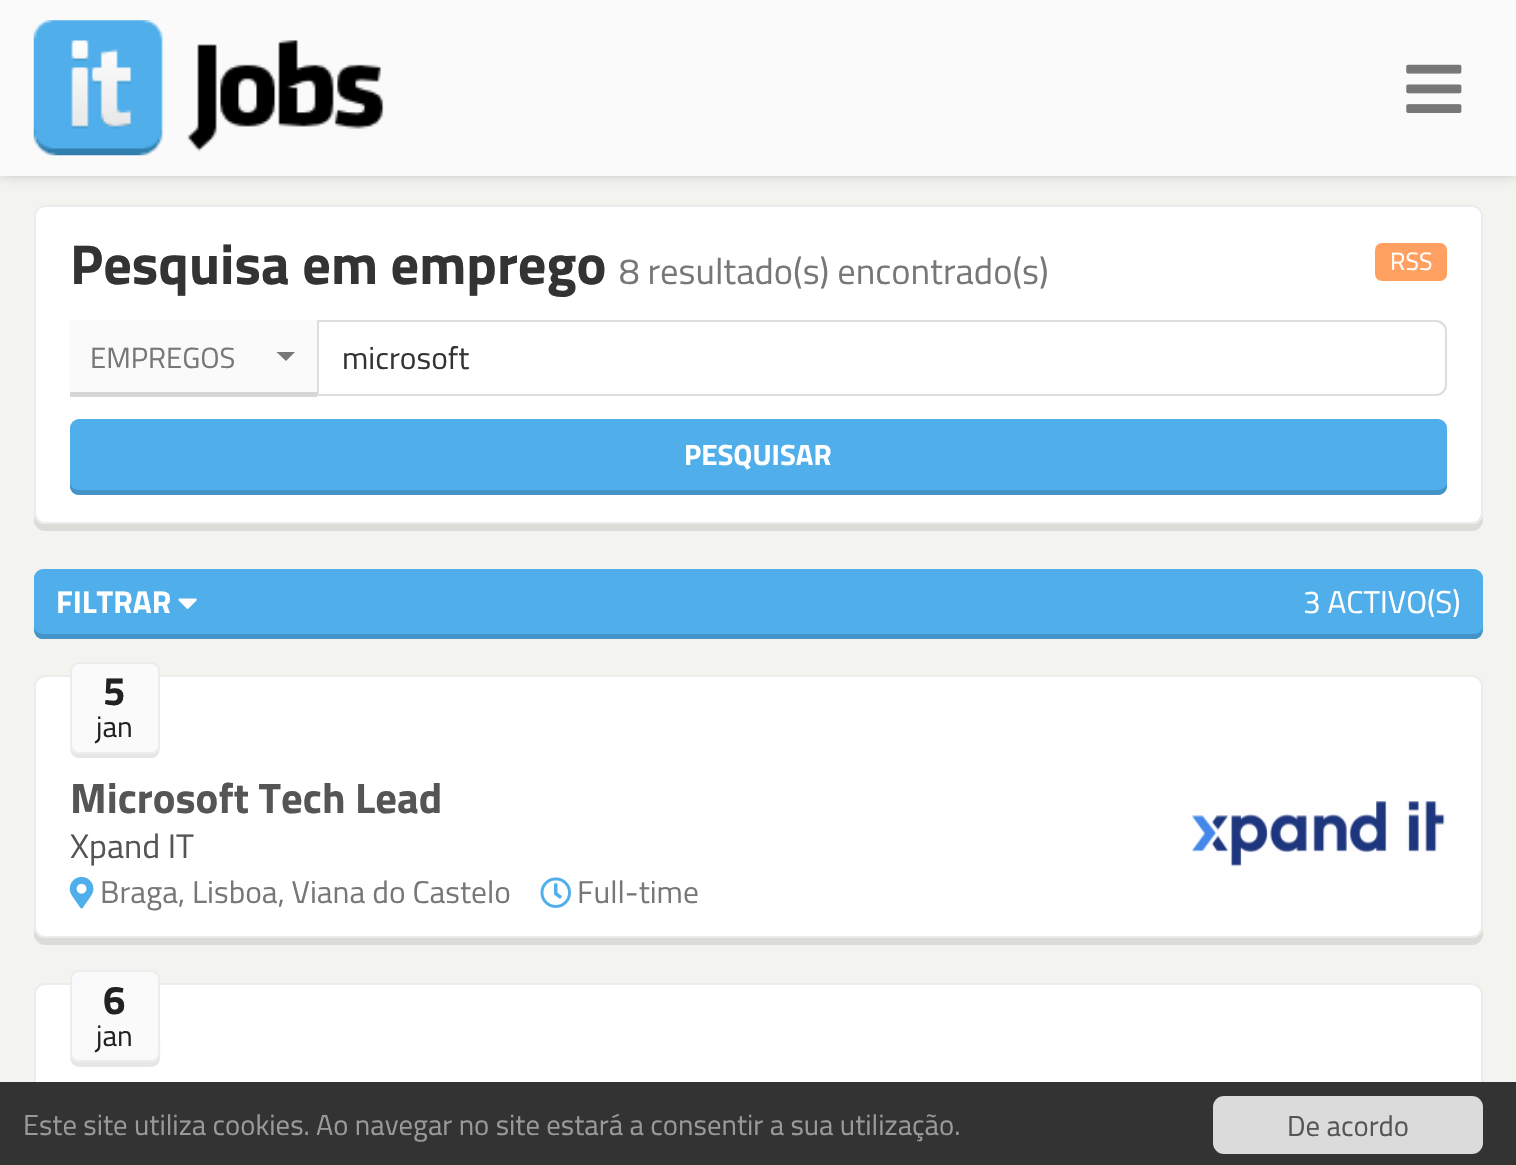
void draw(SkCanvas* c) {
SkPaint p;
p.setAntiAlias(true);
auto F=[&](const char* family, int weight, float size, bool italic = false){SkFontStyle style(weight, SkFontStyle::kNormal_Width,italic ? SkFontStyle::kItalic_Slant : SkFontStyle::kUpright_Slant);SkFont result(fontMgr->matchFamilyStyle(family, style), size);result.setSubpixel(true);return result;};
auto T=[&](const char* s, float x, float y, const SkFont& font){c->drawString(s, x, y, font, p);};
auto R=[&](float x, float y, float w, float h){c->drawRect(SkRect::MakeXYWH(x, y, w, h), p);};
auto Q=[&](float x, float y, float w, float h, float radius){c->drawRoundRect(SkRect::MakeXYWH(x, y, w, h), radius, radius, p);};
auto I=[&](const char* path, float x, float y, float w, float h){auto image = SkImages::DeferredFromEncodedData(SkData::MakeFromFileName(path));c->drawImageRect(image, SkRect::MakeXYWH(x, y, w, h), SkSamplingOptions());};
auto P=[&](const char* data, bool evenOdd = false){SkPath result = *SkParsePath::FromSVGString(data);if (evenOdd) result.setFillType(SkPathFillType::kEvenOdd);return result;};
c->clear(0xfff3f3f0);
p.setColor(0x66000000);
p.setMaskFilter(SkMaskFilter::MakeBlur(kNormal_SkBlurStyle, 7));
c->drawRect(SkRect::MakeXYWH(0,-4,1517,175),p);
p.setMaskFilter(nullptr);
p.setColor(0xfffafafa);
R(0,0,1516,176);
I("1.png",33,20,351,136);
I("2.png",1406,64,56,49);
p.setColor(0xffdbdbd8);
c->drawPath(P("M34 515v5c0 6 5 11 11 11h1427c6 0 11-5 11-11v-299v292c0 6-5 11-11 11h-1427c-5 0-10-4-11-9z"),p);
p.setColor(0xffffffff);
Q(34,205,1449,319,11);
p.setColor(0xffd9d9d9);
R(70,396,247,1);
p.setStroke(true);
p.setStrokeWidth(2);
p.setColor(0xffedecec);
c->drawRoundRect(SkRect::MakeXYWH(35,206,1447,317),10,10,p);
auto f1 = F("Titillium Web",700,56.25);
p.setStroke(false);
p.setColor(0xff333333);
T("Pesquisa em emprego",70,284,f1);
auto f2 = F("Titillium Web",400,36.5);
p.setColor(0xff777777);
T("8 resultado(s) encontrado(s)",619,284,f2);
p.setColor(0xffffa060);
Q(1375,243,72,38,7);
auto f3 = F("Titillium Web",400,25);
p.setColor(0xffffffff);
T("RSS",1390,270,f3);
p.setColor(0xfffafafa);
R(70,320,247,72);
p.setColor(0xffd5d5d5);
R(70,392,247,4);
auto f4 = F("Titillium Web",400,29.25);
p.setColor(0xff777777);
T("EMPREGOS",90,368,f4);
c->drawPath(P("M276.5 352h18.5l-9 9z"),p);
p.setStroke(true);
p.setColor(0xffdddddd);
c->drawPath(P("M318 321h1118c5.5 0 10 4.5 10 10v54c0 5.5-4.5 10-10 10h-1118z"),p);
auto f5 = F("Titillium Web",400,31.5);
p.setStroke(false);
p.setColor(0xff333333);
T("microsoft",342,369,f5);
p.setColor(0xff50afea);
Q(70,419,1377,76,9);
p.setColor(0xff4594c7);
c->drawPath(P("M70 482v4c0 5 4 9 9 9h1359c5 0 9-4 9-9v-4c0 4-4 8-9 8h-1359c-5 0-9-4-9-8z"),p);
auto f6 = F("Titillium Web",700,29.25);
p.setColor(0xffffffff);
T("PESQUISAR",684,465,f6);
p.setColor(0xff50afea);
Q(34,569,1449,70,9);
p.setColor(0xff4594c7);
c->drawPath(P("M34 626c0 6 1 13 9 13h1431c8 0 9-7 9-13c0 4-4 8-9 8h-1431c-5 0-9-4-9-8z"),p);
auto f7 = F("Titillium Web",700,31.5);
p.setColor(0xffffffff);
T("FILTRAR",56,613,f7);
I("3.png",178,598,19,11);
T("3 ACTIVO(S)",1303,613,f5);
p.setColor(0xffdbdbd8);
c->drawPath(P("M34 929v5c0 6 5 11 11 11h1427c6 0 11-5 11-11v-243v236c0 6-5 11-11 11h-1427c-5 0-10-4-11-9z"),p);
p.setColor(0xffffffff);
c->drawRoundRect(SkRect::MakeXYWH(35,676,1447,261),10,10,p);
p.setStroke(true);
p.setColor(0xffedecec);
c->drawRoundRect(SkRect::MakeXYWH(35,676,1447,261),10,10,p);
p.setStroke(false);
p.setColor(0xffe6e6e6);
c->drawPath(P("M70 747c0 6 3 11 9 11h74c9-2 7-15 7-21v-64v72c0 5-4 9-9 9h-72c-4 0-8-3-9-7z"),p);
p.setColor(0xfffafafa);
c->drawRoundRect(SkRect::MakeXYWH(71,663,88,90),8,8,p);
p.setStroke(true);
p.setColor(0xffedecec);
c->drawRoundRect(SkRect::MakeXYWH(71,663,88,90),8,8,p);
auto f8 = F("Titillium Web",700,40);
p.setStroke(false);
p.setColor(0xff222222);
T("5",103,705,f8);
T("jan",96,737,f4);
auto f9 = F("Titillium Web",700,42.75);
p.setColor(0xff555555);
T("Microsoft Tech Lead",70,813,f9);
I("4.png",1191,801,254,66);
auto f10 = F("Titillium Web",400,34);
T("Xpand IT",70,858,f10);
I("5.png",69,876,25,33);
p.setColor(0xff777777);
T("Braga, Lisboa, Viana do Castelo",100,903,f5);
I("6.png",540,877,31,31);
T("Full-time",577,903,f5);
p.setColor(0xffffffff);
c->drawRoundRect(SkRect::MakeXYWH(35,984,1447,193),10,10,p);
p.setStroke(true);
p.setColor(0xffedecec);
c->drawRoundRect(SkRect::MakeXYWH(35,984,1447,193),10,10,p);
p.setStroke(false);
p.setColor(0xffe6e6e6);
c->drawPath(P("M70 1055c0 14 9 12 21 12h36c38 0 33 4 33-34v-52v72c0 5-4 9-9 9h-72c-4 0-8-3-9-7z"),p);
p.setColor(0xfffafafa);
c->drawRoundRect(SkRect::MakeXYWH(71,971,88,90),8,8,p);
p.setStroke(true);
p.setColor(0xffedecec);
c->drawRoundRect(SkRect::MakeXYWH(71,971,88,90),8,8,p);
p.setStroke(false);
p.setColor(0xff222222);
T("6",103,1014,f8);
T("jan",96,1046,f4);
p.setColor(0xff333333);
R(0,1082,1516,83);
auto f11 = F("Titillium Web",400,28.8);
p.setColor(0xff999999);
T("Este site utiliza cookies. Ao navegar no site estará a consentir a sua utilização.",23,1135,f11);
p.setColor(0xffdbdbdb);
Q(1213,1096,270,58,11);
p.setColor(0xff555555);
T("De acordo",1287,1136,f11);
}
